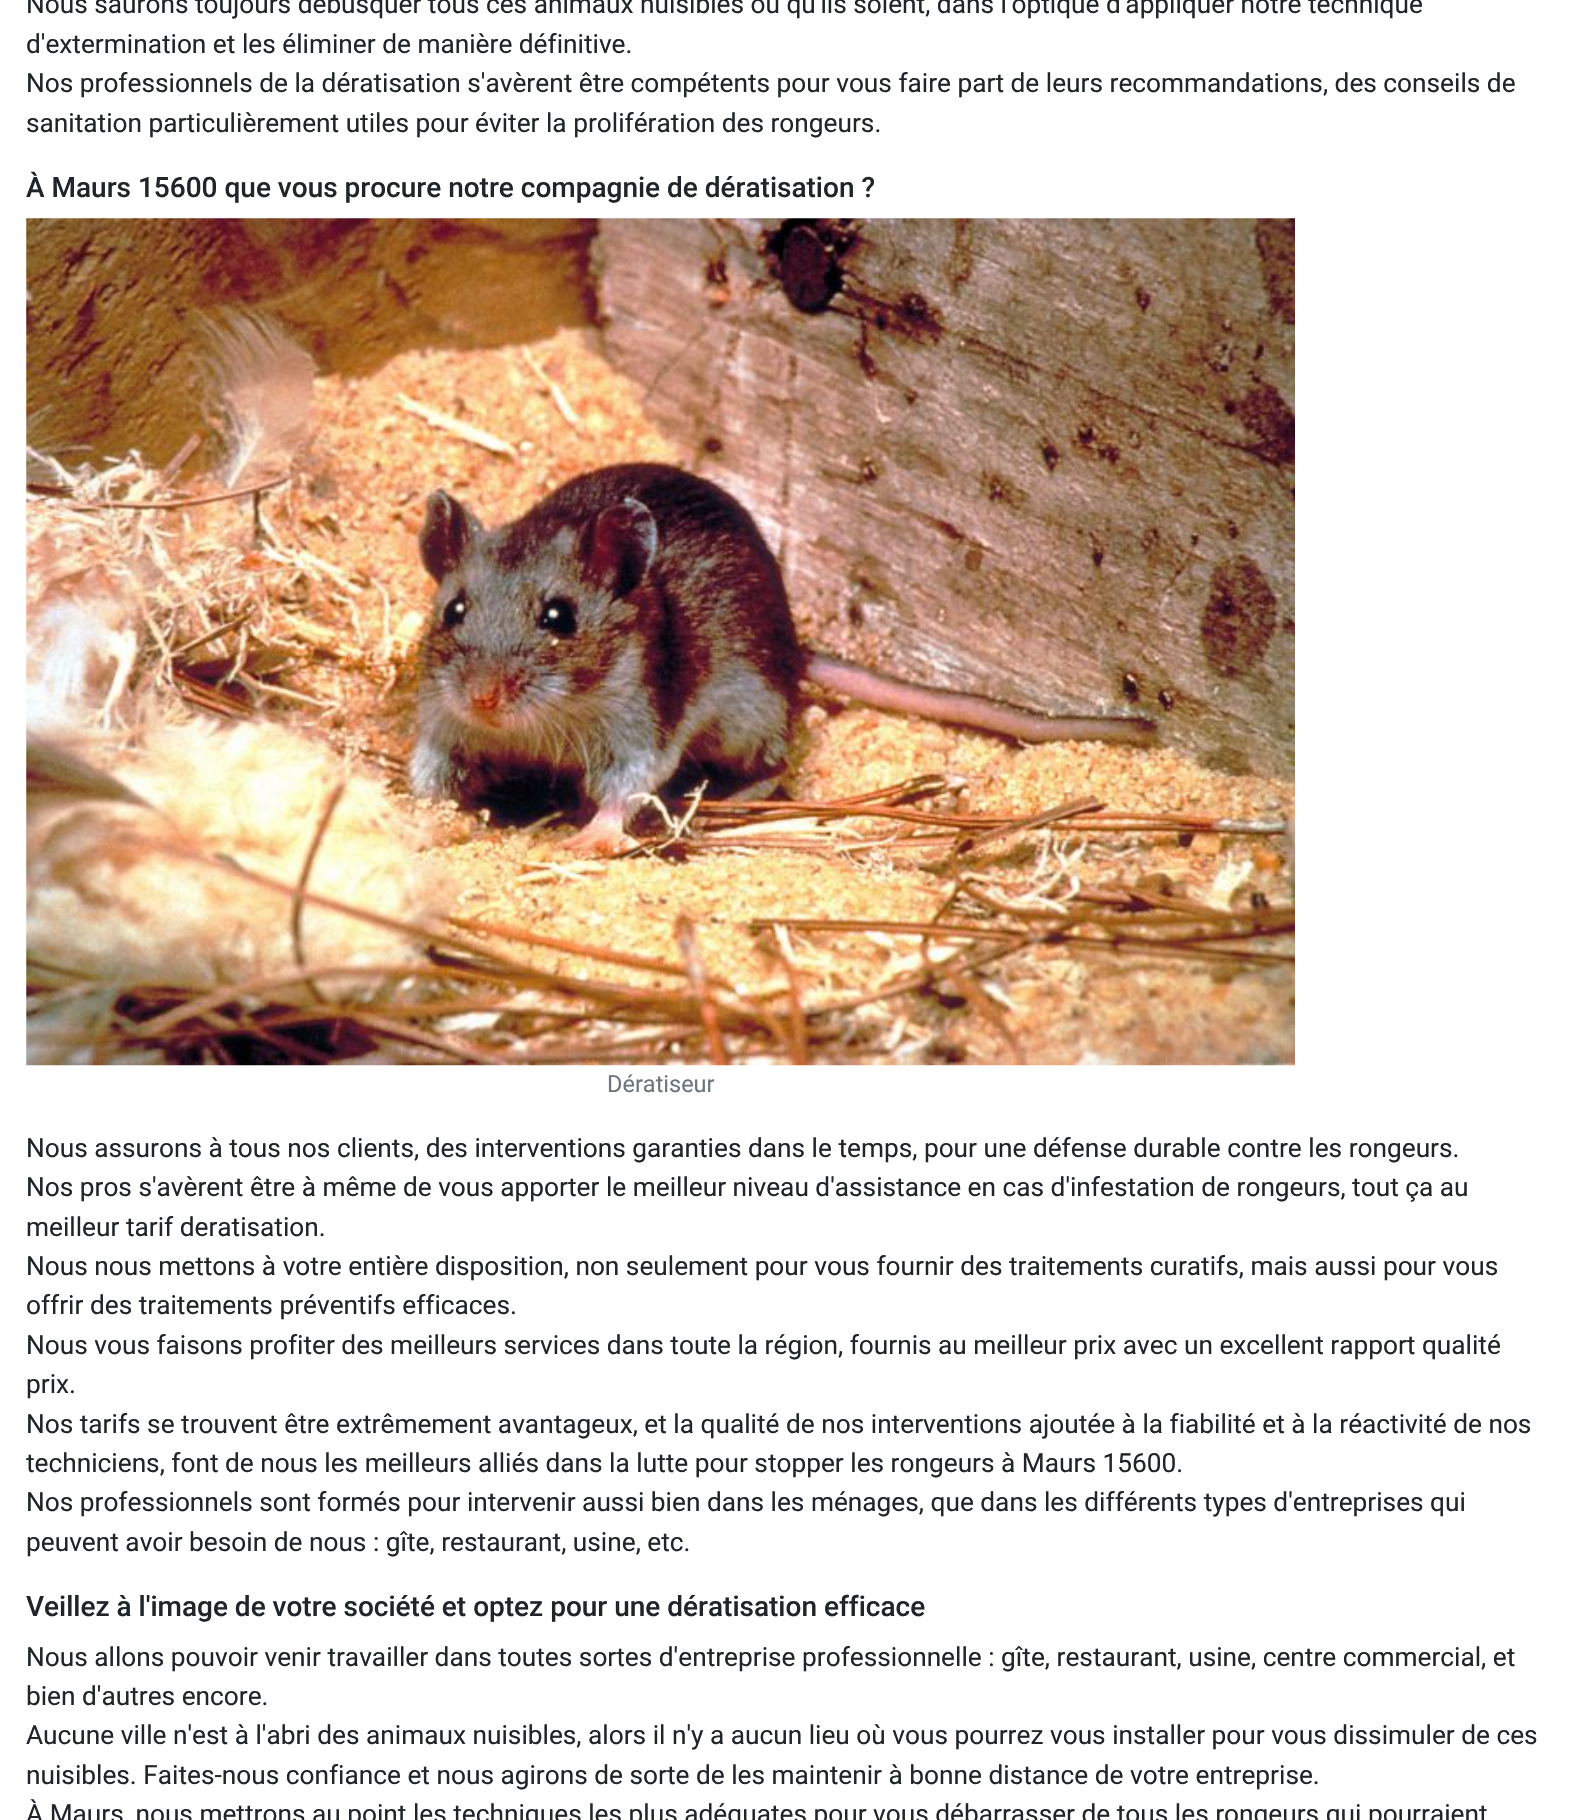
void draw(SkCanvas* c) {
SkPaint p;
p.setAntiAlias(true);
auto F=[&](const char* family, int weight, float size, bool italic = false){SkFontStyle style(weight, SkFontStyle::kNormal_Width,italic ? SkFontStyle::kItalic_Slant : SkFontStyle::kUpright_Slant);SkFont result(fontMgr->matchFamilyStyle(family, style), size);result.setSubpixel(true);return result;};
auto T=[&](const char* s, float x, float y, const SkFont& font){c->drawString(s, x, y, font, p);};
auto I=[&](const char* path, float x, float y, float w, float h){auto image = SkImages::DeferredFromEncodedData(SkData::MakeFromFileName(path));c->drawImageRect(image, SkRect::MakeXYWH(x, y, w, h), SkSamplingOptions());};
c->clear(0xffffffff);
auto f1 = F("Roboto",400,26.25);
p.setColor(0xff212529);
T("Nous saurons toujours débusquer tous ces animaux nuisibles où qu'ils soient, dans l'optique d'appliquer notre technique",26,13,f1);
T("d'extermination et les éliminer de manière définitive.",26,53,f1);
T("Nos professionnels de la dératisation s'avèrent être compétents pour vous faire part de leurs recommandations, des conseils de",26,92,f1);
T("sanitation particulièrement utiles pour éviter la prolifération des rongeurs.",26,132,f1);
auto f2 = F("Roboto",500,28);
T("À Maurs 15600 que vous procure notre compagnie de dératisation ?",26,197,f2);
I("1.png",26,218,1269,848);
auto f3 = F("Roboto",400,23.5);
p.setColor(0xff6c757d);
T("Dératiseur",607,1092,f3);
p.setColor(0xff212529);
T("Nous assurons à tous nos clients, des interventions garanties dans le temps, pour une défense durable contre les rongeurs.",26,1157,f1);
T("Nos pros s'avèrent être à même de vous apporter le meilleur niveau d'assistance en cas d'infestation de rongeurs, tout ça au",26,1196,f1);
T("meilleur tarif deratisation.",26,1236,f1);
T("Nous nous mettons à votre entière disposition, non seulement pour vous fournir des traitements curatifs, mais aussi pour vous",26,1275,f1);
T("offrir des traitements préventifs efficaces.",26,1314,f1);
T("Nous vous faisons profiter des meilleurs services dans toute la région, fournis au meilleur prix avec un excellent rapport qualité",26,1354,f1);
T("prix.",26,1393,f1);
T("Nos tarifs se trouvent être extrêmement avantageux, et la qualité de nos interventions ajoutée à la fiabilité et à la réactivité de nos",26,1433,f1);
T("techniciens, font de nous les meilleurs alliés dans la lutte pour stopper les rongeurs à Maurs 15600.",26,1472,f1);
T("Nos professionnels sont formés pour intervenir aussi bien dans les ménages, que dans les différents types d'entreprises qui",26,1511,f1);
T("peuvent avoir besoin de nous : gîte, restaurant, usine, etc.",26,1551,f1);
T("Veillez à l'image de votre société et optez pour une dératisation efficace",26,1616,f2);
T("Nous allons pouvoir venir travailler dans toutes sortes d'entreprise professionnelle : gîte, restaurant, usine, centre commercial, et",26,1666,f1);
T("bien d'autres encore.",26,1705,f1);
T("Aucune ville n'est à l'abri des animaux nuisibles, alors il n'y a aucun lieu où vous pourrez vous installer pour vous dissimuler de ces",26,1744,f1);
T("nuisibles. Faites-nous confiance et nous agirons de sorte de les maintenir à bonne distance de votre entreprise.",26,1784,f1);
T("À Maurs, nous mettrons au point les techniques les plus adéquates pour vous débarrasser de tous les rongeurs qui pourraient",26,1823,f1);
}
